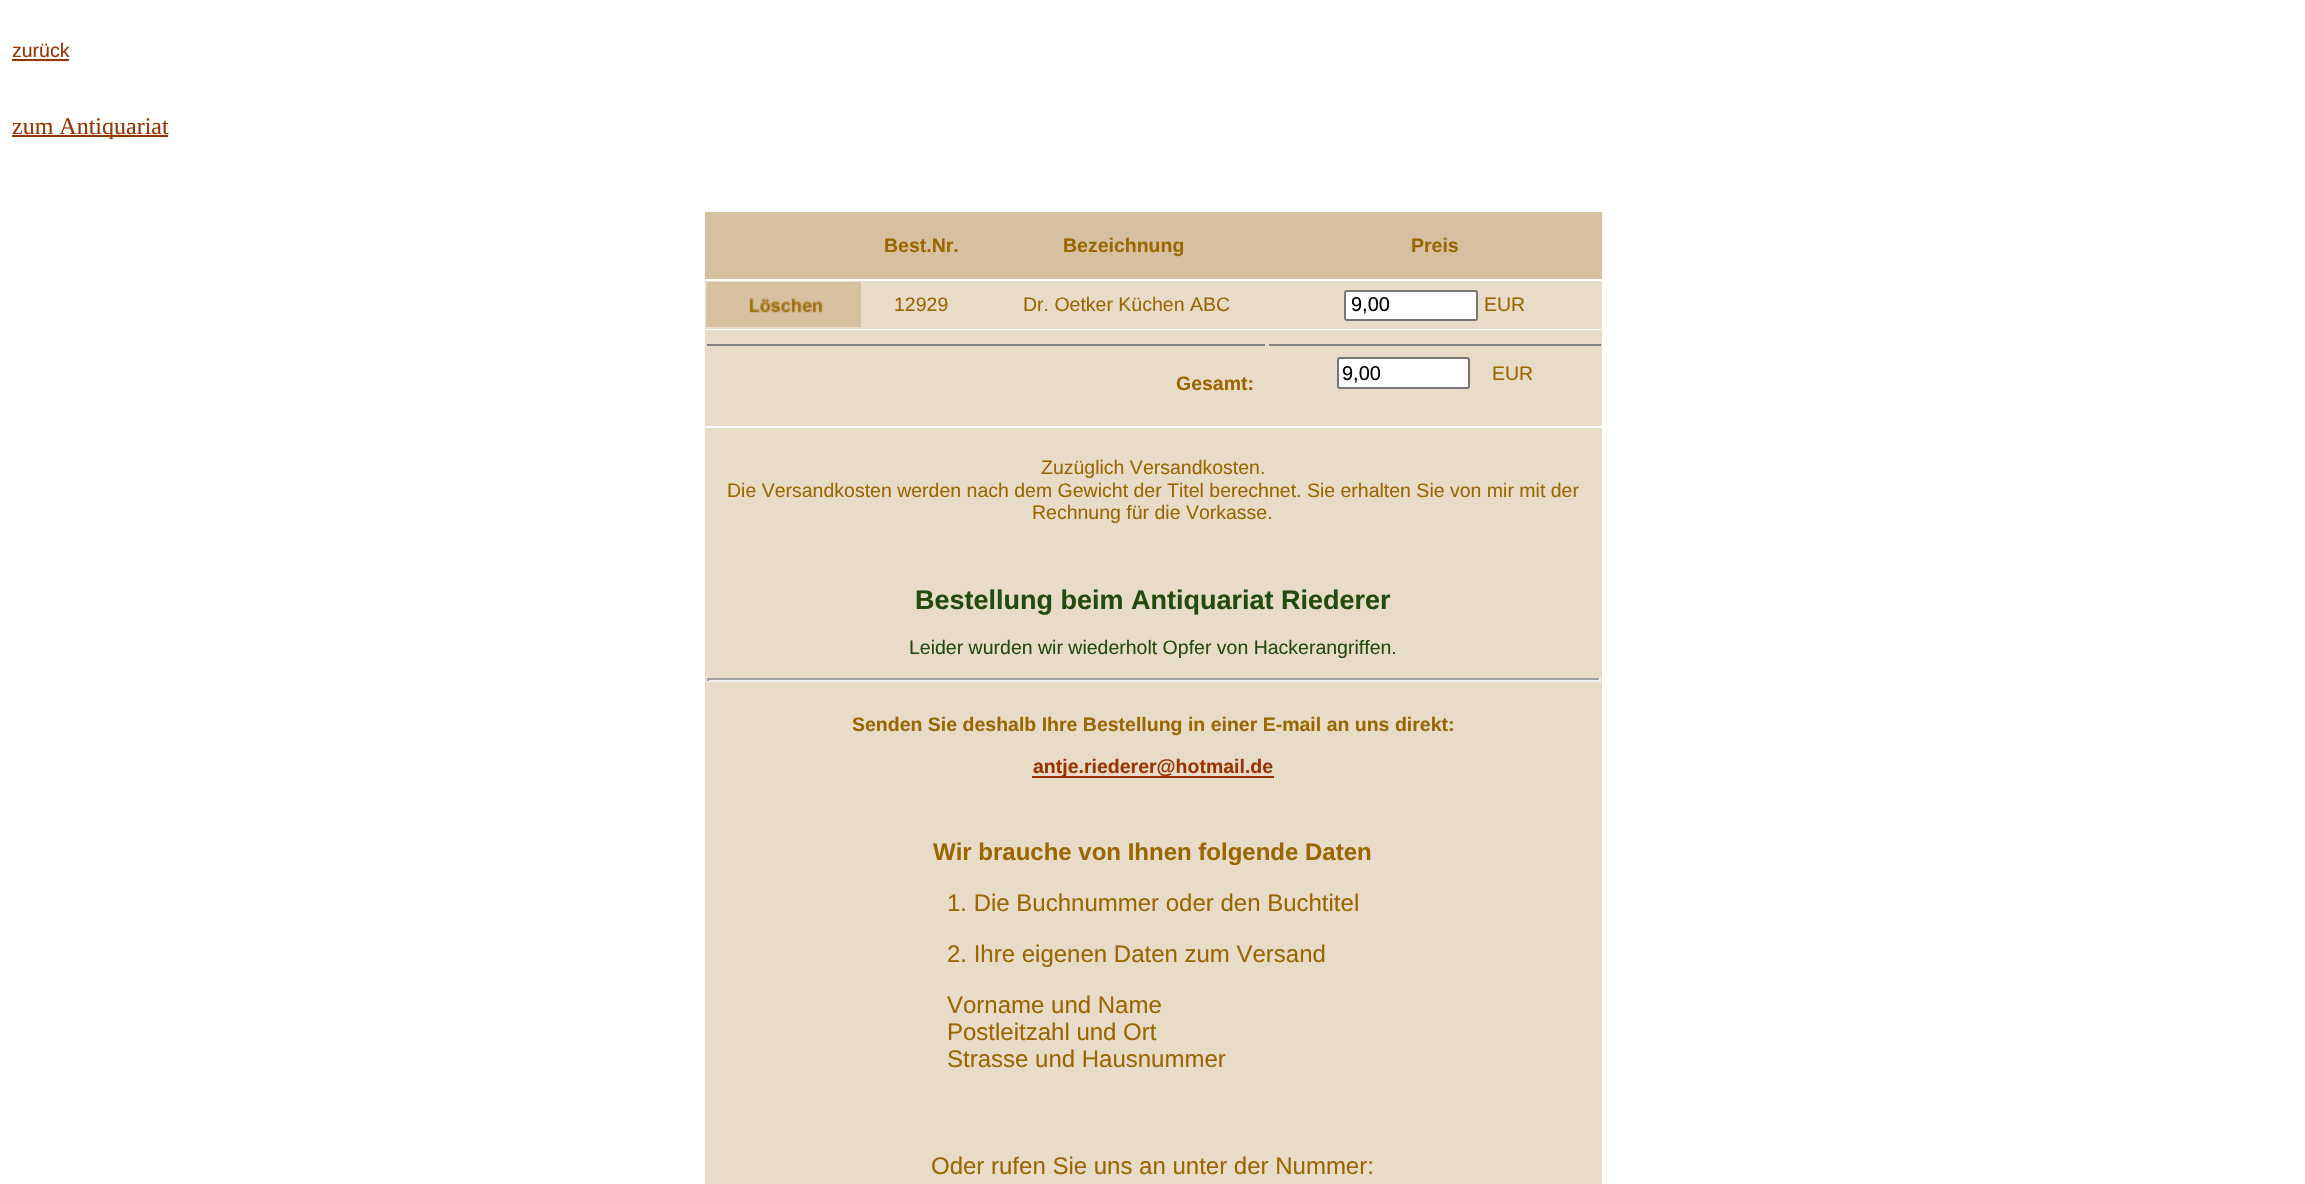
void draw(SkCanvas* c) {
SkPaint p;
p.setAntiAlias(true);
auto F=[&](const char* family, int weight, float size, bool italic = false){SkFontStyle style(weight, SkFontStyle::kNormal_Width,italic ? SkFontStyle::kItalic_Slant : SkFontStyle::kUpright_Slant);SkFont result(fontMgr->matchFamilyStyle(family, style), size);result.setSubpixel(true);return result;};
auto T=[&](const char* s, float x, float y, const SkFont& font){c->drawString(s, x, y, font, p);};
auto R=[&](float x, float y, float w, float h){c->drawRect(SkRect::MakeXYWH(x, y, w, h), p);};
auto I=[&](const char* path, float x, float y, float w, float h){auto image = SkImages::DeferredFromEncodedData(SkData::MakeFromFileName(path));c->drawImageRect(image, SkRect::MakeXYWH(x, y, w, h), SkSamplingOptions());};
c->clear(0xffffffff);
auto f1 = F("Liberation Sans",400,19.5);
p.setColor(0xff993300);
T("zurück",12,57,f1);
R(12,59,57,2);
R(12,135,156,2);
auto f2 = F("Liberation Serif",400,24);
T("zum Antiquariat",12,134,f2);
p.setColor(0xffd7c09f);
R(705,212,897,67);
auto f3 = F("Liberation Sans",700,19.5);
p.setColor(0xff996600);
T("Best.Nr.",884,252,f3);
T("Bezeichnung",1063,252,f3);
T("Preis",1411,252,f3);
p.setColor(0xffe8dbc8);
R(705,281,897,48);
I("1.png",706,282,155,45);
p.setColor(0xff996600);
T("12929",894,311,f1);
T("Dr. Oetker Küchen ABC",1023,311,f1);
p.setColor(0xffffffff);
c->drawRoundRect(SkRect::MakeXYWH(1345,291,132,29),2,2,p);
p.setStroke(true);
p.setStrokeWidth(2);
p.setColor(0xff767676);
c->drawRoundRect(SkRect::MakeXYWH(1345,291,132,29),2,2,p);
auto f4 = F("Liberation Sans",400,20);
p.setStroke(false);
p.setColor(0xff000000);
T("9,00",1351,311,f4);
p.setColor(0xff996600);
T("EUR",1484,311,f1);
p.setColor(0xffe8dbc8);
R(705,330,897,96);
p.setColor(0xff808080);
R(707,344,558,2);
p.setColor(0xff996600);
T("Gesamt:",1176,390,f3);
p.setColor(0xff808080);
R(1269,344,332,2);
p.setColor(0xffffffff);
c->drawRoundRect(SkRect::MakeXYWH(1338,358,131,30),2,2,p);
p.setStroke(true);
p.setColor(0xff767676);
c->drawRoundRect(SkRect::MakeXYWH(1338,358,131,30),2,2,p);
p.setStroke(false);
p.setColor(0xff000000);
T("9,00",1342,380,f4);
p.setColor(0xff996600);
T("EUR",1492,380,f1);
p.setColor(0xffe8dbc8);
R(705,428,897,756);
p.setColor(0xff996600);
T("Zuzüglich Versandkosten.",1041,474,f1);
T("Die Versandkosten werden nach dem Gewicht der Titel berechnet. Sie erhalten Sie von mir mit der",727,497,f1);
T("Rechnung für die Vorkasse.",1032,519,f1);
auto f5 = F("Liberation Sans",700,27);
p.setColor(0xff234b0f);
T("Bestellung beim Antiquariat Riederer",915,609,f5);
T("Leider wurden wir wiederholt Opfer von Hackerangriffen.",909,654,f1);
p.setColor(0xff9f9f9f);
R(707,678,894,2);
p.setColor(0xffeeeeee);
R(1599,678,2,3);
R(707,680,894,2);
p.setColor(0xff9f9f9f);
R(707,678,2,3);
p.setColor(0xff996600);
T("Senden Sie deshalb Ihre Bestellung in einer E-mail an uns direkt:",852,731,f3);
p.setColor(0xff993300);
R(1032,776,242,2);
T("antje.riederer@hotmail.de",1033,773,f3);
auto f6 = F("Liberation Sans",700,24);
p.setColor(0xff996600);
T("Wir brauche von Ihnen folgende Daten",933,860,f6);
auto f7 = F("Liberation Sans",400,24);
T("1. Die Buchnummer oder den Buchtitel",947,911,f7);
T("2. Ihre eigenen Daten zum Versand",947,962,f7);
T("Vorname und Name",947,1013,f7);
T("Postleitzahl und Ort",947,1040,f7);
T("Strasse und Hausnummer",947,1067,f7);
T("Oder rufen Sie uns an unter der Nummer:",931,1174,f7);
}
